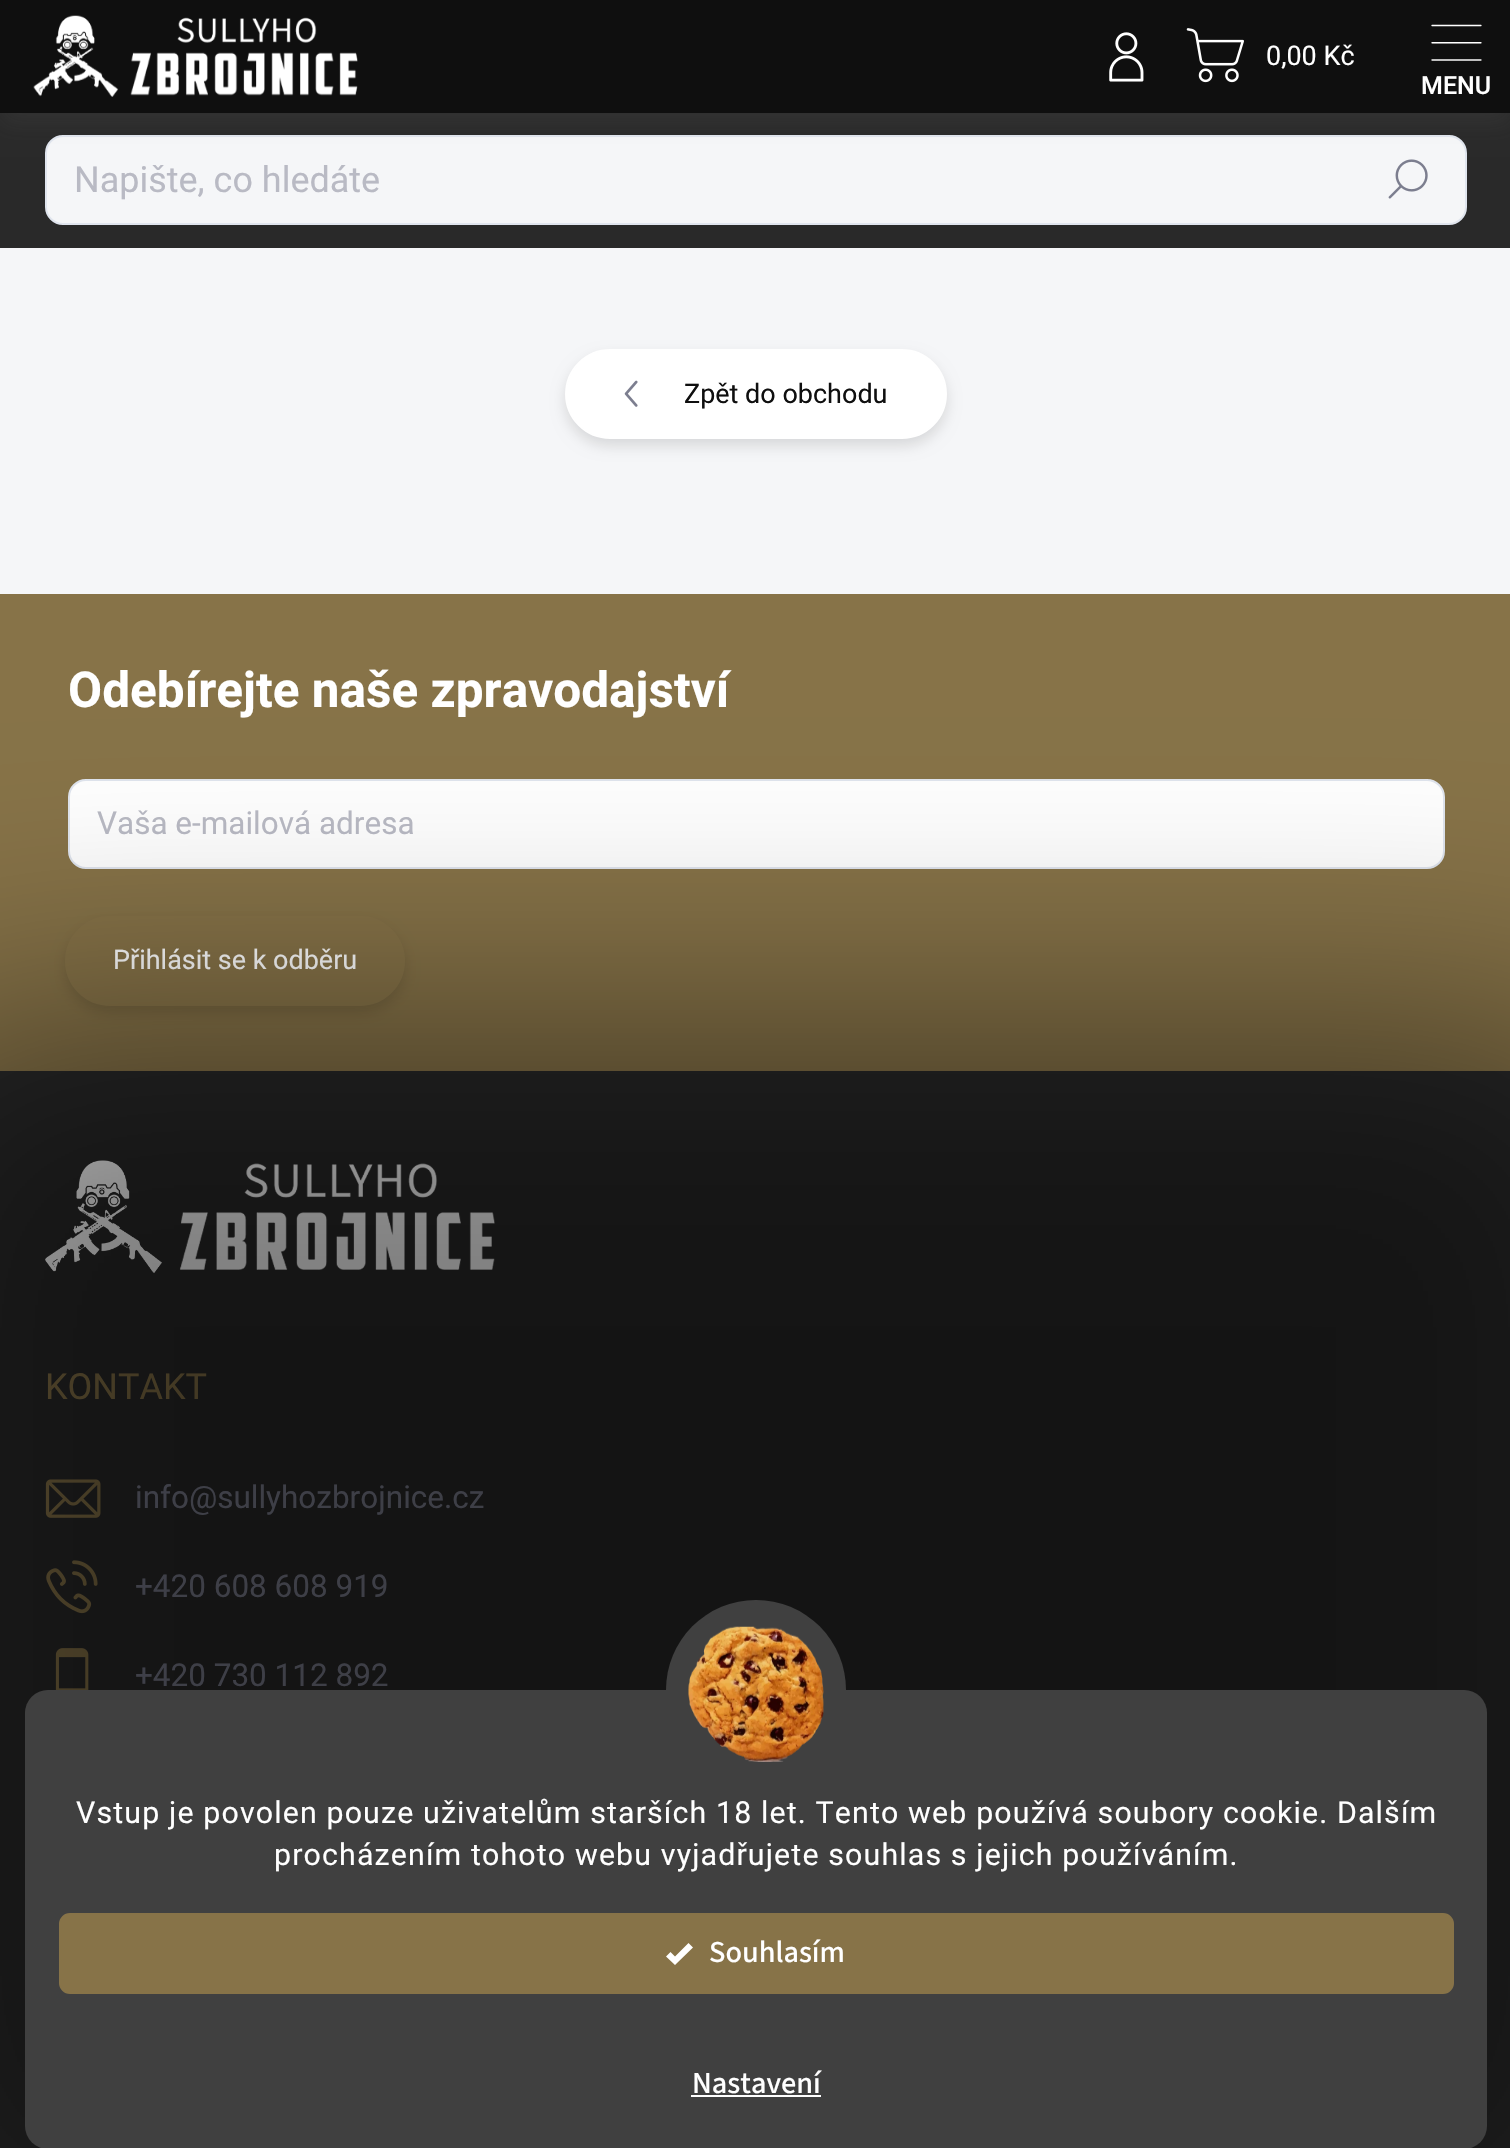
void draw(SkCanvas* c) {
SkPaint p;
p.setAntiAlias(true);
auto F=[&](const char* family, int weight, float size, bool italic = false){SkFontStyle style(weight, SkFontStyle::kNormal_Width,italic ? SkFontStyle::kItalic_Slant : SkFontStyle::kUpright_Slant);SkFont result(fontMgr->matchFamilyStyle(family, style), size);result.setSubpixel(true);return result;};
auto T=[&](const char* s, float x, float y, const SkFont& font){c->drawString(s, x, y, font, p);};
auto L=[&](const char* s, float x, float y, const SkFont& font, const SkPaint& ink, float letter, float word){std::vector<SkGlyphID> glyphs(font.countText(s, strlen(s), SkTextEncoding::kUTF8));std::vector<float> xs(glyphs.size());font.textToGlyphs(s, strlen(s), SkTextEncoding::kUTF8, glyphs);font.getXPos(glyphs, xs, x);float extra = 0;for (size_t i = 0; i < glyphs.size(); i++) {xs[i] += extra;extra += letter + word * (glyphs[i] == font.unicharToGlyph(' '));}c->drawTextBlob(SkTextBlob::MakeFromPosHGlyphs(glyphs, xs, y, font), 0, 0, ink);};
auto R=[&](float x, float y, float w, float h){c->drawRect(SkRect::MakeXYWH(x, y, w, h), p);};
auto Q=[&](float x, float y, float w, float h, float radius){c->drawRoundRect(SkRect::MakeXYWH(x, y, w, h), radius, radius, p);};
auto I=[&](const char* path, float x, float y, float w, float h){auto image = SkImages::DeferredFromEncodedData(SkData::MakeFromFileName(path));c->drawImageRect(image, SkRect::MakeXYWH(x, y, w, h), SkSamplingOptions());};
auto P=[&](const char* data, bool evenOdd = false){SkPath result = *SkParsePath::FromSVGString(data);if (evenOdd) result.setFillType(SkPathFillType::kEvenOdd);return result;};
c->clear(0xfff5f6f8);
p.setColor(0xff292929);
R(0,113,1510,135);
p.setColor(0xfff5f6f8);
c->drawRoundRect(SkRect::MakeXYWH(46,136,1420,88),17,17,p);
p.setStroke(true);
p.setStrokeWidth(2);
p.setColor(0xffe0e5ee);
c->drawRoundRect(SkRect::MakeXYWH(46,136,1420,88),17,17,p);
p.setStroke(false);
p.setColor(0x1a7d7d7d);
p.setMaskFilter(SkMaskFilter::MakeBlur(kNormal_SkBlurStyle, 11));
c->drawRect(SkRect::MakeXYWH(0,11,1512,113),p);
p.setMaskFilter(nullptr);
p.setColor(0xff0f0f0f);
R(0,0,1510,113);
I("1.png",33,15,325,82);
I("2.png",1109,32,35,50);
I("3.png",1186,28,58,55);
auto f1 = F("Roboto",400,27);
p.setColor(0xffffffff);
T("0,00 Kč",1266,65,f1);
I("4.png",1431,24,51,37);
auto f2 = F("Roboto",500,25);
T("MENU",1421,94,f2);
auto f3 = F("Roboto",400,36);
p.setColor(0xffb9bac4);
T("Napište, co hledáte",74,192,f3);
I("5.png",1388,159,40,40);
p.setColor(0x1f000000);
p.setMaskFilter(SkMaskFilter::MakeBlur(kNormal_SkBlurStyle, 7));
c->drawRoundRect(SkRect::MakeXYWH(565,356,382,90),45,45,p);
p.setMaskFilter(nullptr);
p.setColor(0xffffffff);
c->drawRoundRect(SkRect::MakeXYWH(566,350,380,88),44,44,p);
p.setStroke(true);
c->drawRoundRect(SkRect::MakeXYWH(566,350,380,88),44,44,p);
I("6.png",624,380,14,27);
p.setStroke(false);
p.setColor(0xff0f0f0f);
T("Zpět do obchodu",684,403,f1);
p.setColor(0xff292929);
R(0,1071,1510,1077);
p.setColor(0xff877348);
R(0,594,1510,477);
auto f4 = F("Roboto",700,49.5);
p.setColor(0xffffffff);
T("Odebírejte naše zpravodajství",68,707,f4);
c->drawRoundRect(SkRect::MakeXYWH(69,780,1375,88),17,17,p);
p.setStroke(true);
p.setColor(0xffe0e5ee);
c->drawRoundRect(SkRect::MakeXYWH(69,780,1375,88),17,17,p);
auto f5 = F("Roboto",400,31.5);
p.setStroke(false);
p.setColor(0xffb9bac4);
T("Vaša e-mailová adresa",97,834,f5);
p.setColor(0x1f000000);
p.setMaskFilter(SkMaskFilter::MakeBlur(kNormal_SkBlurStyle, 7));
c->drawRoundRect(SkRect::MakeXYWH(65,923,340,90),45,45,p);
p.setMaskFilter(nullptr);
p.setColor(0xff877348);
c->drawRoundRect(SkRect::MakeXYWH(66,917,338,88),44,44,p);
p.setStroke(true);
c->drawRoundRect(SkRect::MakeXYWH(66,917,338,88),44,44,p);
p.setStroke(false);
p.setColor(0xffffffff);
T("Přihlásit se k odběru",113,969,f1);
I("7.png",45,1160,450,113);
p.setColor(0xff877348);
T("KONTAKT",45,1399,f3);
I("8.png",45,1479,56,39);
p.setColor(0xff7c7e8f);
T("info@sullyhozbrojnice.cz",135,1508,f5);
I("9.png",46,1560,52,54);
T("+420 608 608 919",135,1597,f5);
I("10.png",55,1648,34,42);
T("+420 730 112 892",135,1686,f5);
p.setColor(0x80000000);
p.setMaskFilter(SkMaskFilter::MakeBlur(kNormal_SkBlurStyle, 180));
c->drawRoundRect(SkRect::MakeXYWH(-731,1024,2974,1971),779,779,p);
p.setMaskFilter(nullptr);
p.setColor(0xff404040);
Q(25,1690,1462,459,23);
c->drawCircle(756,1690,90,p);
I("11.png",688,1626,136,136);
auto f6 = F("Roboto",400,30.4);
p.setColor(0xffffffff);
L("Vstup je povolen pouze uživatelům starších 18 let. Tento web používá soubory cookie. Dalším",76,1823,f6,p,1.12,0);
L("procházením tohoto webu vyjadřujete souhlas s jejich používáním.",274,1865,f6,p,1.12,0);
p.setColor(0xff877348);
c->drawRoundRect(SkRect::MakeXYWH(60,1914,1393,79),10,10,p);
p.setStroke(true);
c->drawRoundRect(SkRect::MakeXYWH(60,1914,1393,79),10,10,p);
p.setStroke(false);
p.setColor(0xffffffff);
c->drawPath(P("M688.5 1943l-13.5 13.5l-4.5-4.5l-4.5 4.5l9 8.5l18-17.5z"),p);
auto f7 = F("Source Sans 3",500,30.4);
T("Souhlasím",709,1962,f7);
T("Nastavení",692,2093,f7);
R(691,2095,130,2);
}
